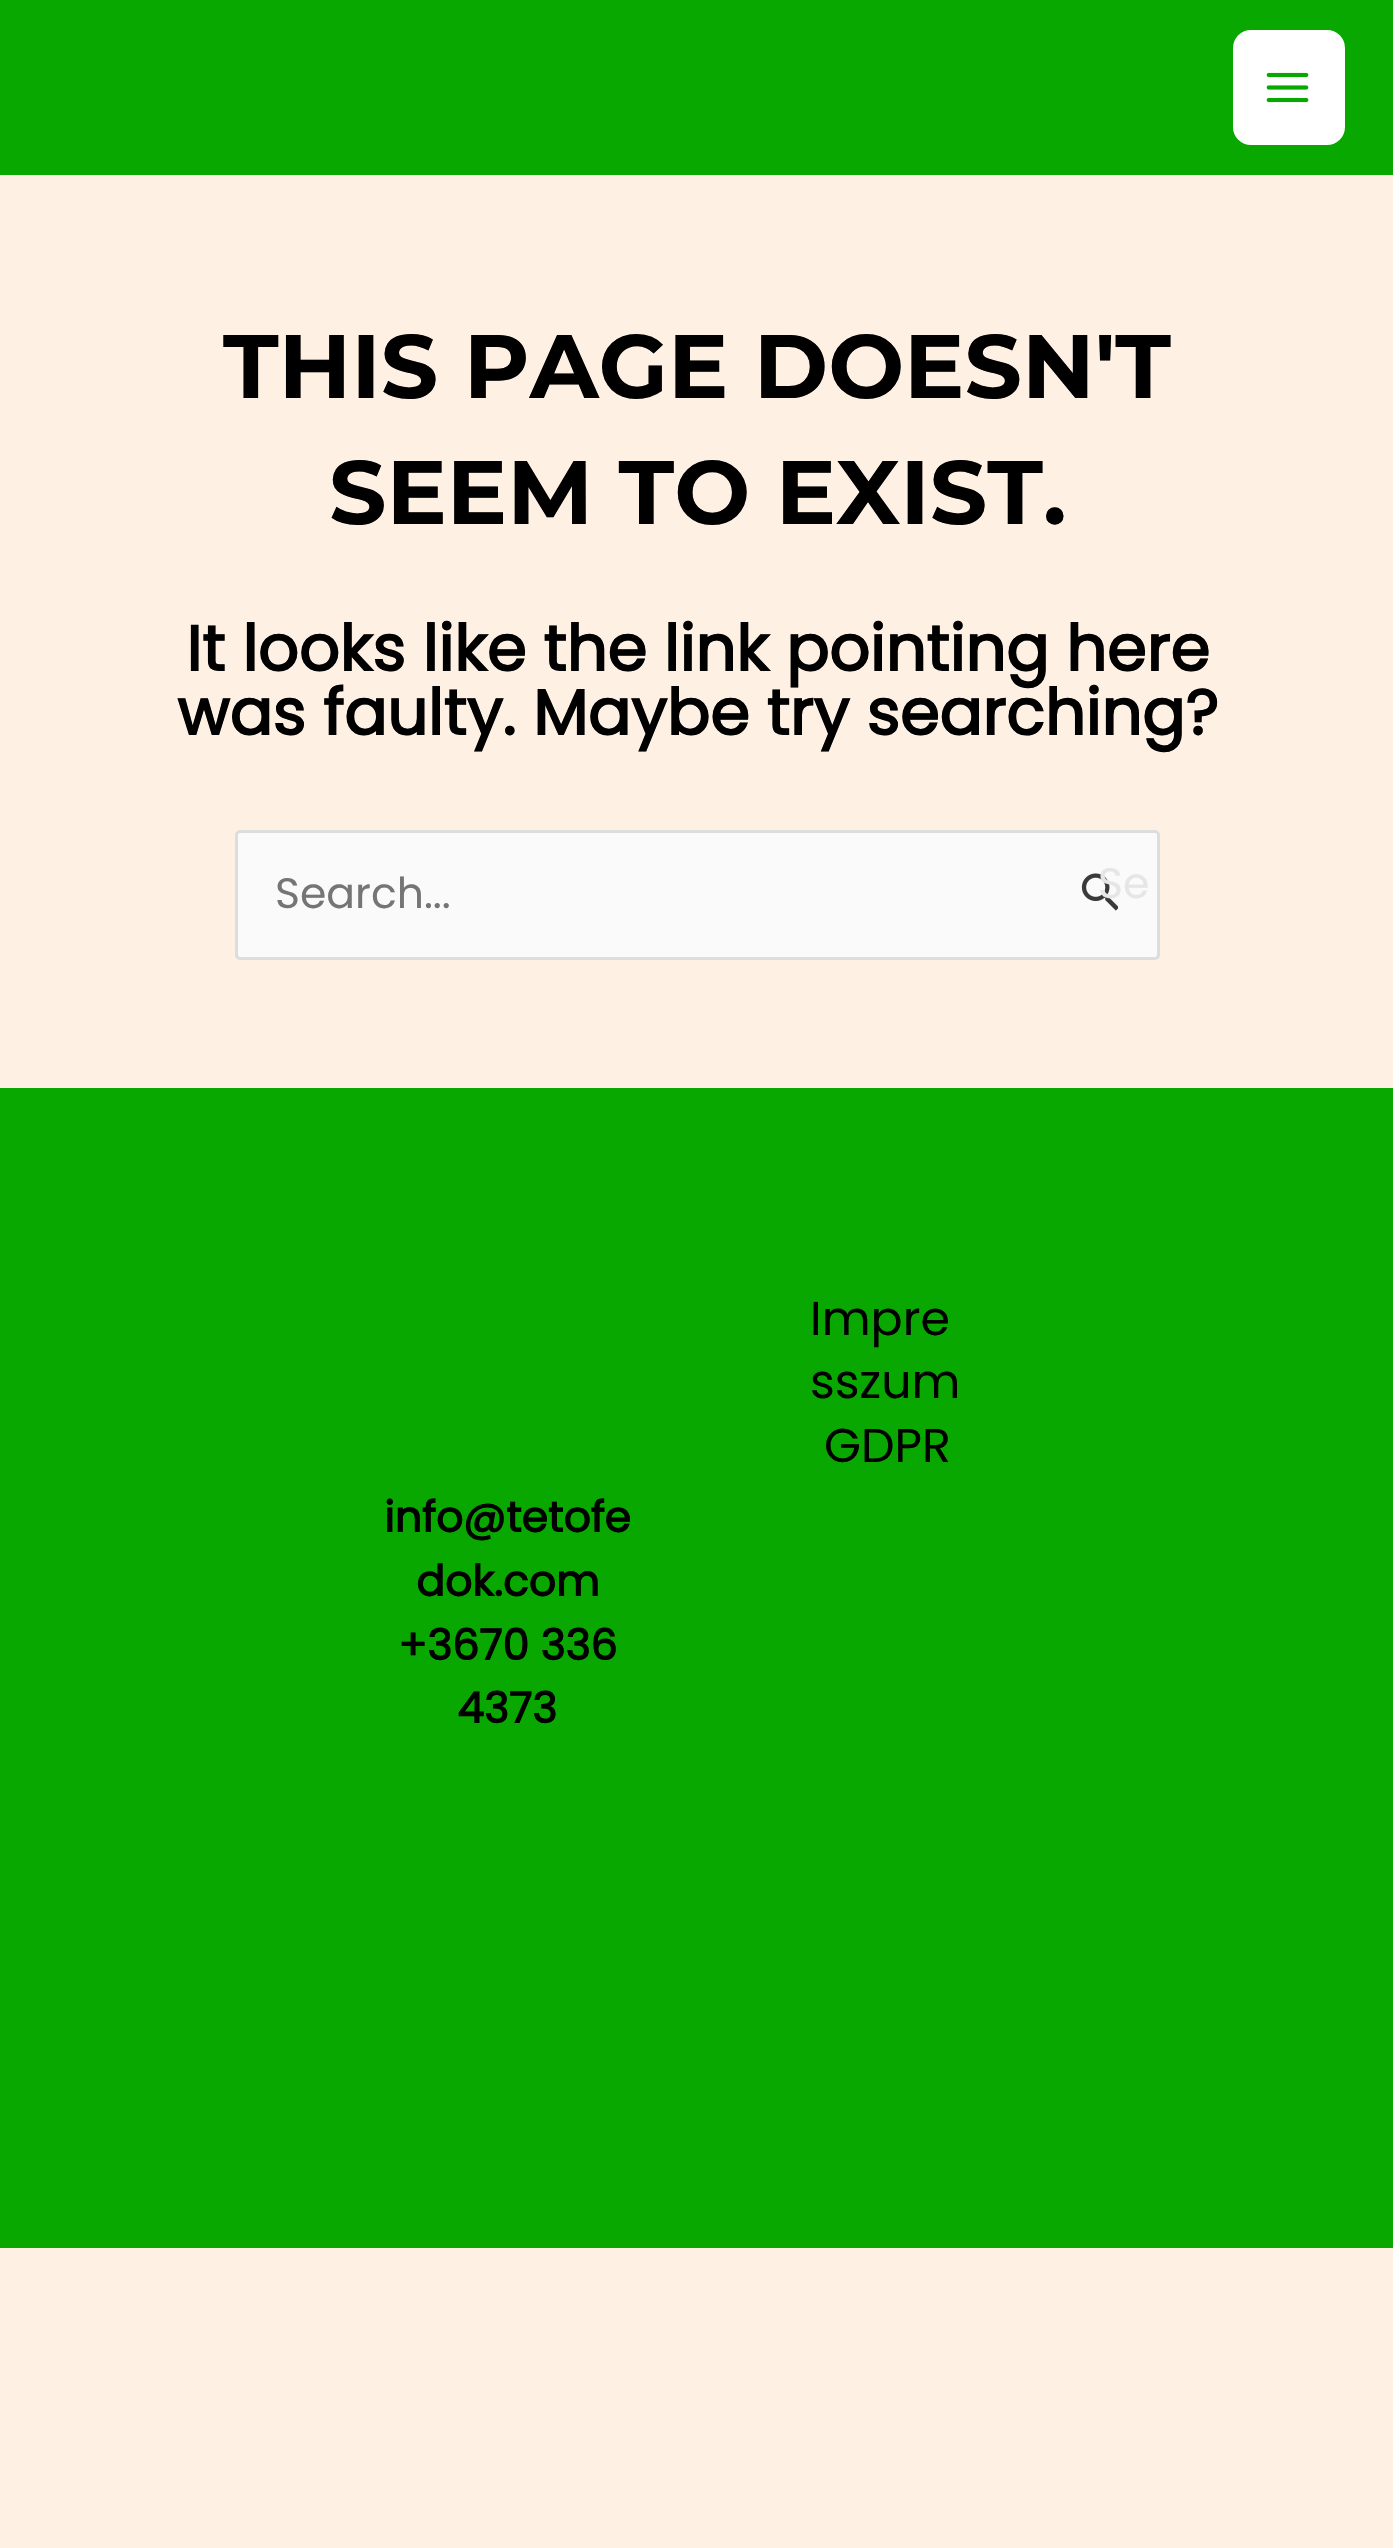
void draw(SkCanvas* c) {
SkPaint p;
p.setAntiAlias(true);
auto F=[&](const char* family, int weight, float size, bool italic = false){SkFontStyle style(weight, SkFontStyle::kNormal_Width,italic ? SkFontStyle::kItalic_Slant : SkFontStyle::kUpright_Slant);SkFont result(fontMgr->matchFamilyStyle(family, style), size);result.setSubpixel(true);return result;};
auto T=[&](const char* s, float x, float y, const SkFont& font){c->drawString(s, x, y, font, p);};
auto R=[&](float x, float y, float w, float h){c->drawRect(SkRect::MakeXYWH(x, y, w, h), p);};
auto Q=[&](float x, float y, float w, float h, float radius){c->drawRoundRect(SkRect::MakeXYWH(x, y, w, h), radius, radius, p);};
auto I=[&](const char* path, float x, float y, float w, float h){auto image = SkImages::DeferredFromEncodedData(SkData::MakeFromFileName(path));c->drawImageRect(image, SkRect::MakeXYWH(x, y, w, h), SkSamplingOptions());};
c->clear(0xfffef1e4);
p.setColor(0xff08a800);
R(0,0,1393,175);
p.setColor(0xffffffff);
Q(1233,30,112,115,18);
I("1.png",1266,72,43,31);
auto f1 = F("Montserrat",700,90);
p.setColor(0xff000000);
T("THIS PAGE DOESN'T",223,398,f1);
T("SEEM TO EXIST.",329,524,f1);
auto f2 = F("Poppins",700,63.75);
T("It looks like the link pointing here",186,671,f2);
T("was faulty. Maybe try searching?",177,735,f2);
p.setColor(0xfffafafa);
c->drawRoundRect(SkRect::MakeXYWH(236.5,831.5,922,127),3.5,3.5,p);
p.setStroke(true);
p.setStrokeWidth(3);
p.setColor(0xffdddddd);
c->drawRoundRect(SkRect::MakeXYWH(236.5,831.5,922,127),3.5,3.5,p);
auto f3 = F("Poppins",400,42.5);
p.setStroke(false);
p.setColor(0xff757575);
T("Search...",275,908,f3);
I("2.png",1081,873,37,38);
p.setColor(0xffe6e6e6);
T("Se",1098,898,f3);
p.setColor(0xff08a800);
R(0,1088,1393,1160);
auto f4 = F("Poppins",400,47.5);
p.setColor(0xff000000);
T("Impre",810,1335,f4);
T("sszum",810,1398,f4);
T("GDPR",824,1462,f4);
auto f5 = F("Poppins",700,42.5);
T("info@tetofe",384,1532,f5);
T("dok.com",416,1596,f5);
T("+3670 336",398,1660,f5);
T("4373",457,1723,f5);
}
